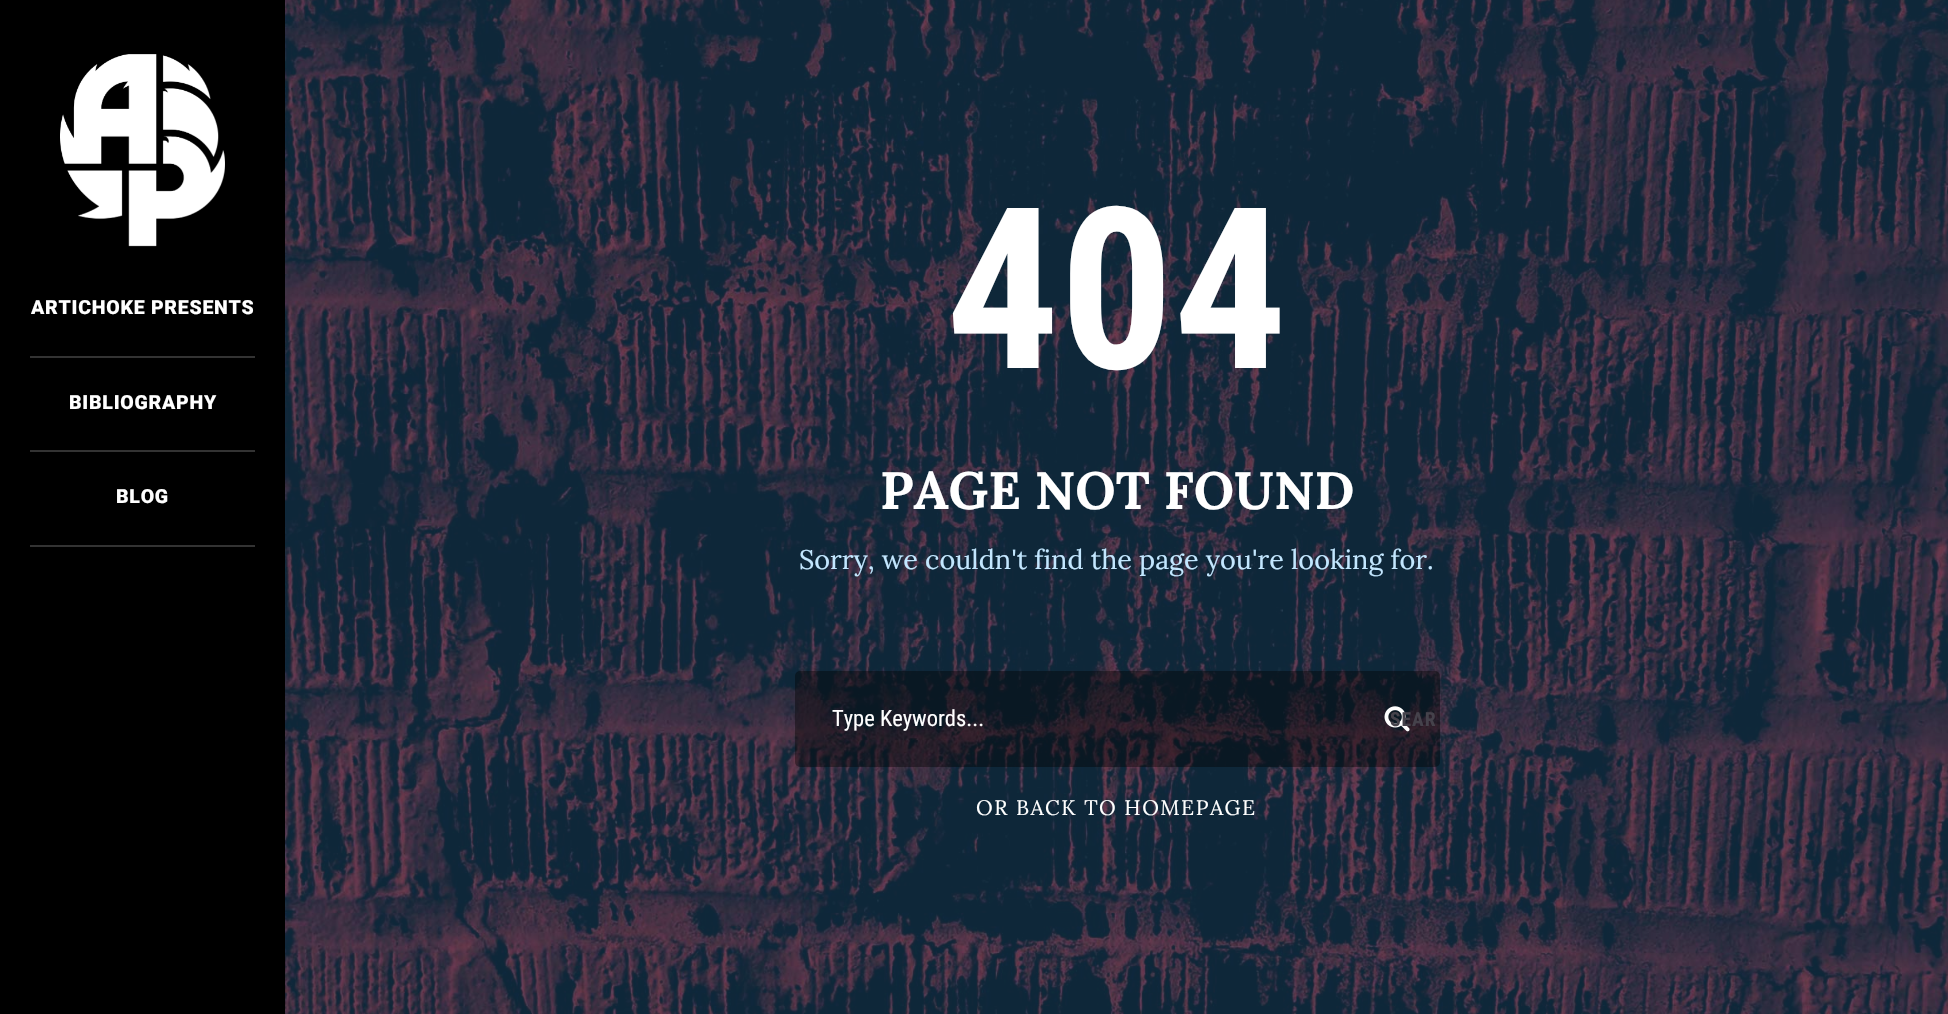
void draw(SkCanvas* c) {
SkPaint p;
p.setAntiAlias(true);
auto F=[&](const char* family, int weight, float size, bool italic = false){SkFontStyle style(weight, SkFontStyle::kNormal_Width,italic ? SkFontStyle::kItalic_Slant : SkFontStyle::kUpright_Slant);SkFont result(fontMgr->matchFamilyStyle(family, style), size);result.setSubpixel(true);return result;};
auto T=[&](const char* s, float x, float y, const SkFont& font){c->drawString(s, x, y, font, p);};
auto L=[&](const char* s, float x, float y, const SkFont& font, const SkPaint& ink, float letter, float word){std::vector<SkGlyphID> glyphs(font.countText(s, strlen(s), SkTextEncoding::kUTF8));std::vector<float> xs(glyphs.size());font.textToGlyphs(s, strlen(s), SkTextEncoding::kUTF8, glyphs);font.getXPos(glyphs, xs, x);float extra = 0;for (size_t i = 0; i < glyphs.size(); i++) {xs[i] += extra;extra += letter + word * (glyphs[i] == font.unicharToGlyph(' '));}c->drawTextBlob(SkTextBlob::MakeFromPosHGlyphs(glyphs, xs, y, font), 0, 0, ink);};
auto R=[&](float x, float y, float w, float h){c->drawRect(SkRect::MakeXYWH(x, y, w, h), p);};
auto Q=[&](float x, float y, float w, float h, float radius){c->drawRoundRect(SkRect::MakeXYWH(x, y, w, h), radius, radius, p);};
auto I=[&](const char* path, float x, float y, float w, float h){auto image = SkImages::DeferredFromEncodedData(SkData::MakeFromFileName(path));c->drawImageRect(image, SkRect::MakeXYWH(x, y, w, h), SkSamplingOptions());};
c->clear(0xff000000);
I("1.png",60,54,165,193);
p.setColor(0xff333333);
R(30,356,225,2);
auto f1 = F("Roboto",900,19.5);
p.setColor(0xffffffff);
L("ARTICHOKE PRESENTS",31,314,f1,p,.75,0);
p.setColor(0xff333333);
R(30,450,225,2);
p.setColor(0xffffffff);
L("BIBLIOGRAPHY",69,409,f1,p,.75,0);
p.setColor(0xff333333);
R(30,545,225,2);
p.setColor(0xffffffff);
L("BLOG",116,503,f1,p,.75,0);
p.setColor(0xff23618e);
R(285,0,1663,1014);
I("2.png",285,0,1663,1014);
auto f2 = F("Roboto Condensed",700,225);
p.setColor(0xffffffff);
T("404",946,368,f2);
auto f3 = F("Lora",700,52.5);
T("PAGE NOT FOUND",880,509,f3);
auto f4 = F("Lora",400,27);
p.setColor(0xffc3e7ff);
T("Sorry, we couldn't find the page you're looking for.",799,569,f4);
p.setColor(0x66000000);
Q(795,671,645,96,5);
auto f5 = F("Roboto Condensed",400,22.5);
p.setColor(0xffffffff);
T("Type Keywords...",832,726,f5);
I("3.png",1384,706,26,26);
auto f6 = F("Roboto Condensed",700,19.5);
p.setColor(0xff45424b);
L("SEAR",1390,726,f6,p,1,0);
auto f7 = F("Lora",400,21);
p.setColor(0xffffffff);
L("OR BACK TO HOMEPAGE",976,815,f7,p,1.5,0);
}
